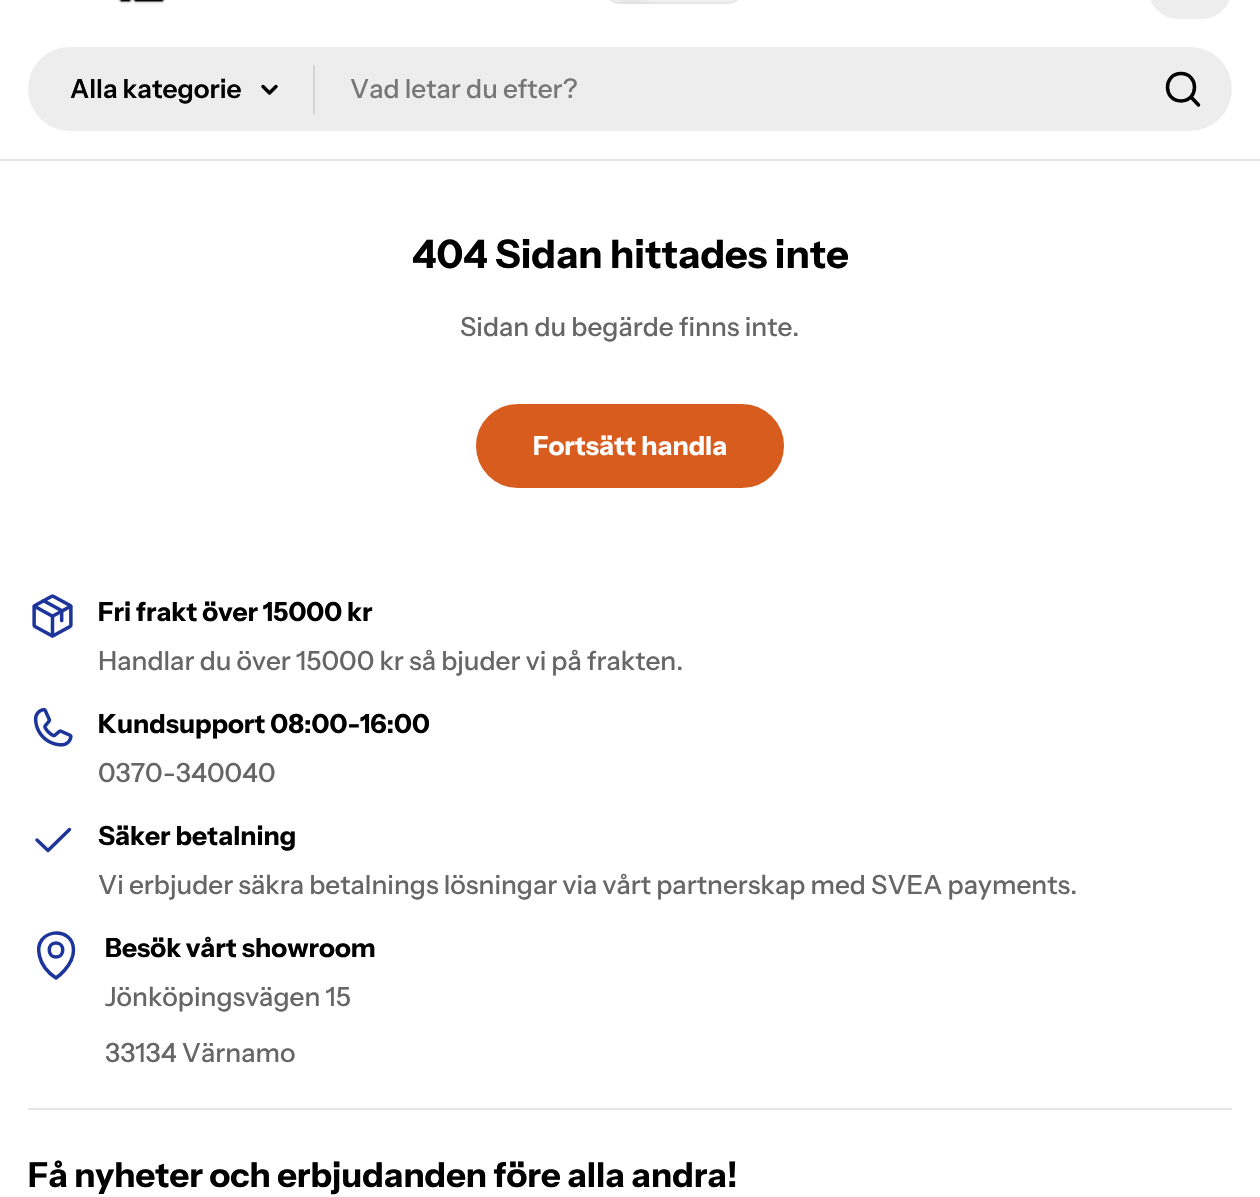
void draw(SkCanvas* c) {
SkPaint p;
p.setAntiAlias(true);
auto F=[&](const char* family, int weight, float size, bool italic = false){SkFontStyle style(weight, SkFontStyle::kNormal_Width,italic ? SkFontStyle::kItalic_Slant : SkFontStyle::kUpright_Slant);SkFont result(fontMgr->matchFamilyStyle(family, style), size);result.setSubpixel(true);return result;};
auto T=[&](const char* s, float x, float y, const SkFont& font){c->drawString(s, x, y, font, p);};
auto R=[&](float x, float y, float w, float h){c->drawRect(SkRect::MakeXYWH(x, y, w, h), p);};
auto Q=[&](float x, float y, float w, float h, float radius){c->drawRoundRect(SkRect::MakeXYWH(x, y, w, h), radius, radius, p);};
auto I=[&](const char* path, float x, float y, float w, float h){auto image = SkImages::DeferredFromEncodedData(SkData::MakeFromFileName(path));c->drawImageRect(image, SkRect::MakeXYWH(x, y, w, h), SkSamplingOptions());};
auto P=[&](const char* data, bool evenOdd = false){SkPath result = *SkParsePath::FromSVGString(data);if (evenOdd) result.setFillType(SkPathFillType::kEvenOdd);return result;};
c->clear(0xffffffff);
I("1.png",118,0,47,4);
p.setStroke(true);
p.setStrokeWidth(2);
p.setColor(0xffe5e5e5);
c->drawRoundRect(SkRect::MakeXYWH(605,-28,138,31),25.5,25.5,p);
p.setStroke(false);
p.setColor(0xfff0f0f0);
Q(606,-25,136,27,24.5);
p.setColor(0x33000000);
p.setMaskFilter(SkMaskFilter::MakeBlur(kNormal_SkBlurStyle, 3.5));
c->drawRoundRect(SkRect::MakeXYWH(613,-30,38,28),19,19,p);
p.setMaskFilter(nullptr);
p.setColor(0xffededed);
Q(1148,-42,84,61,42);
Q(28,47,1204,84,42);
auto f1 = F("Instrument Sans",600,26.25);
p.setColor(0xff000000);
T("Alla kategorie",70,98,f1);
p.setStroke(true);
p.setStrokeWidth(3.5);
p.setStrokeCap(SkPaint::kRound_Cap);
p.setStrokeJoin(SkPaint::kRound_Join);
c->drawPath(P("M276 86.5l-6.5 6.5l-6.5-6.5"),p);
p.setStroke(false);
p.setColor(0xffd5d5d5);
R(313,65,2,49);
auto f2 = F("Instrument Sans",500,26.25);
p.setColor(0xff777777);
T("Vad letar du efter?",350,98,f2);
p.setStroke(true);
p.setColor(0xff000000);
c->drawPath(P("M1181 101c18 0 18-27.5 0-27.5c-18 0-18 27.5 0 27.5zm10-4l7.5 8"),p);
p.setStroke(false);
p.setColor(0xffe5e5e5);
R(0,159,1260,2);
auto f3 = F("Instrument Sans",700,39.25);
p.setColor(0xff000000);
T("404 Sidan hittades inte",412,268,f3);
p.setColor(0xff666666);
T("Sidan du begärde finns inte.",460,336,f2);
p.setColor(0xffd85c1e);
c->drawRoundRect(SkRect::MakeXYWH(477,405,306,82),41,41,p);
p.setStroke(true);
p.setStrokeWidth(2);
p.setStrokeCap(SkPaint::kButt_Cap);
p.setStrokeJoin(SkPaint::kMiter_Join);
c->drawRoundRect(SkRect::MakeXYWH(477,405,306,82),41,41,p);
auto f4 = F("Instrument Sans",700,26.25);
p.setStroke(false);
p.setColor(0xffffffff);
T("Fortsätt handla",533,455,f4);
I("2.png",32,594,41,44);
p.setColor(0xff000000);
T("Fri frakt över 15000 kr",98,621,f4);
p.setColor(0xff666666);
T("Handlar du över 15000 kr så bjuder vi på frakten.",98,670,f2);
I("3.png",33,707,40,40);
p.setColor(0xff000000);
T("Kundsupport 08:00-16:00",98,733,f4);
p.setColor(0xff666666);
T("0370-340040",98,782,f2);
p.setStroke(true);
p.setStrokeWidth(3.5);
p.setStrokeCap(SkPaint::kRound_Cap);
p.setStrokeJoin(SkPaint::kRound_Join);
p.setColor(0xff1d349a);
c->drawPath(P("M69.5 829.5l-21.5 21l-11-10.5"),p);
p.setStroke(false);
p.setColor(0xff000000);
T("Säker betalning",98,845,f4);
p.setColor(0xff666666);
T("Vi erbjuder säkra betalnings lösningar via vårt partnerskap med SVEA payments.",98,894,f2);
p.setStroke(true);
p.setColor(0xff1d349a);
c->drawPath(P("M56 957c9 0 9-14 0-14c-9 0-9 14 0 14zm17.5-7c0 16-17.5 28-17.5 28c-7.5-5-14.5-13-16.5-22c-7-27.5 34-31.5 34-6z"),p);
p.setStroke(false);
p.setColor(0xff000000);
T("Besök vårt showroom",105,957,f4);
p.setColor(0xff666666);
T("Jönköpingsvägen 15",105,1006,f2);
T("33134 Värnamo",105,1062,f2);
p.setColor(0xffe5e5e5);
R(28,1108,1204,2);
auto f5 = F("Instrument Sans",700,34.3);
p.setColor(0xff000000);
T("Få nyheter och erbjudanden före alla andra!",28,1187,f5);
}
